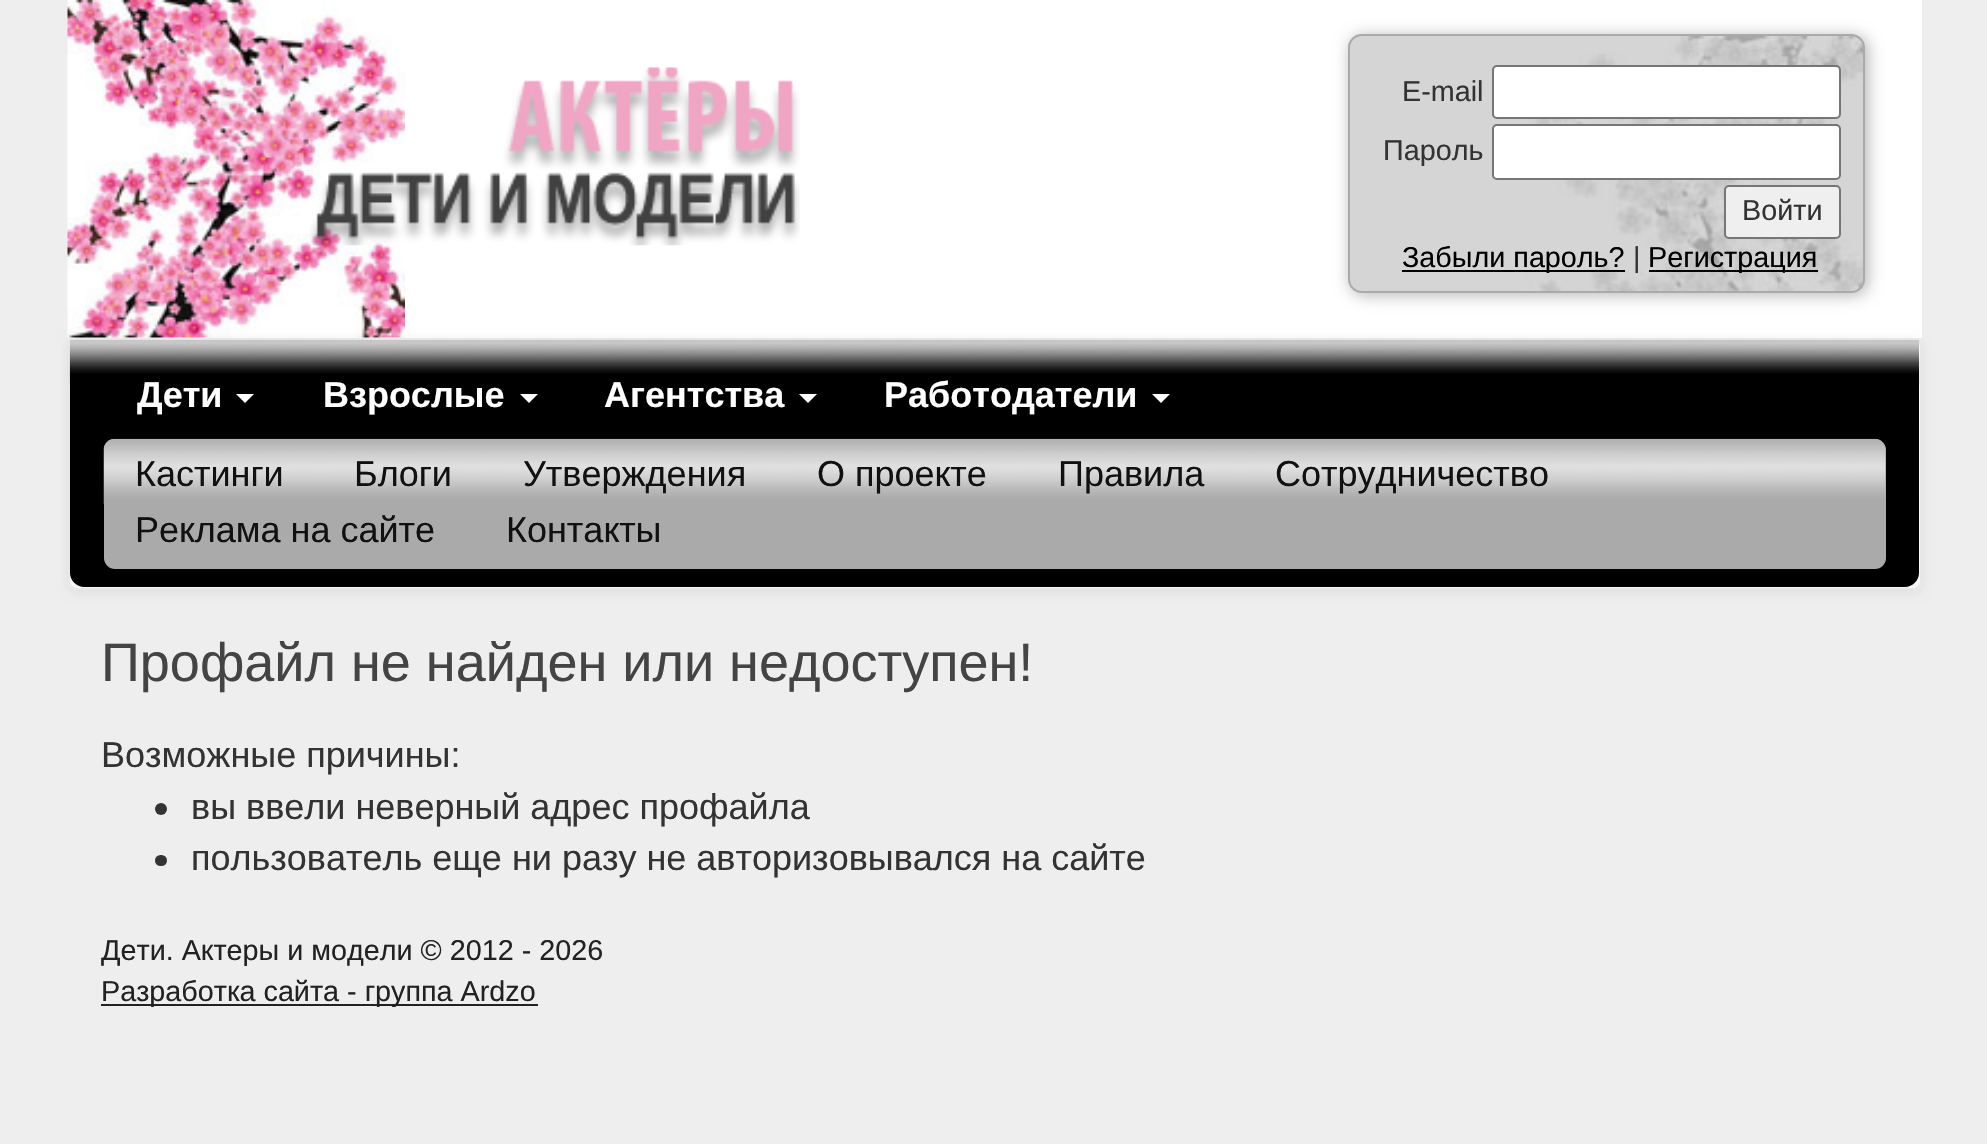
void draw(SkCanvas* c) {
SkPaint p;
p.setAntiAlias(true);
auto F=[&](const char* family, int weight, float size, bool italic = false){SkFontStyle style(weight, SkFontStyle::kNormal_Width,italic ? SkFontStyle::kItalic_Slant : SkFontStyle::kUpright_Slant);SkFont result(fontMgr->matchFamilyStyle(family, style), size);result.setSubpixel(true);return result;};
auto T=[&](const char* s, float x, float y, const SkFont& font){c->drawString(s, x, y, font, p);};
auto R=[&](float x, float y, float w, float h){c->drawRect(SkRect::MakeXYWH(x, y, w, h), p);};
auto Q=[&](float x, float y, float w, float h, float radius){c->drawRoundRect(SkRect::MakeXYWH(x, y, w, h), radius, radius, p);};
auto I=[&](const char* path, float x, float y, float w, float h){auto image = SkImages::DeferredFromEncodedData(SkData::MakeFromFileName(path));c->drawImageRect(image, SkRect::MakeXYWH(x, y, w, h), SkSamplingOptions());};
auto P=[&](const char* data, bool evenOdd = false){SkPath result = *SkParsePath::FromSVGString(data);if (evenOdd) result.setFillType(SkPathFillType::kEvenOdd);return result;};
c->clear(0xffeeeeee);
p.setColor(0xffffffff);
R(68,0,1854,338);
I("1.png",67,0,338,338);
I("2.png",310,67,490,179);
p.setColor(0xffb5b5b5);
p.setMaskFilter(SkMaskFilter::MakeBlur(kNormal_SkBlurStyle, 8));
c->drawRoundRect(SkRect::MakeXYWH(1350,36,518,259),14,14,p);
p.setMaskFilter(nullptr);
p.setColor(0xffd5d5d5);
Q(1348,34,517,259,14);
I("3.png",1525,36,338,257);
p.setStroke(true);
p.setStrokeWidth(2);
p.setColor(0xffaaaaaa);
c->drawRoundRect(SkRect::MakeXYWH(1349,35,515,257),13,13,p);
auto f1 = F("Liberation Sans",400,28.75);
p.setStroke(false);
p.setColor(0xff333333);
T("E-mail",1402,101,f1);
p.setColor(0xffffffff);
c->drawRoundRect(SkRect::MakeXYWH(1493,66,347,52),4,4,p);
p.setStroke(true);
p.setColor(0xff767676);
c->drawRoundRect(SkRect::MakeXYWH(1493,66,347,52),4,4,p);
p.setStroke(false);
p.setColor(0xff333333);
T("Пароль",1383,160,f1);
p.setColor(0xffffffff);
c->drawRoundRect(SkRect::MakeXYWH(1493,125,347,54),4,4,p);
p.setStroke(true);
p.setColor(0xff767676);
c->drawRoundRect(SkRect::MakeXYWH(1493,125,347,54),4,4,p);
p.setStroke(false);
p.setColor(0xffefefef);
c->drawRoundRect(SkRect::MakeXYWH(1725,186,115,52),4,4,p);
p.setStroke(true);
p.setColor(0xff767676);
c->drawRoundRect(SkRect::MakeXYWH(1725,186,115,52),4,4,p);
p.setStroke(false);
p.setColor(0xff333333);
T("Войти",1742,220,f1);
p.setColor(0xff000000);
R(1402,270,223,2);
T("Забыли пароль?",1402,267,f1);
p.setColor(0xff333333);
T("|",1633,267,f1);
p.setColor(0xff000000);
R(1649,270,169,2);
T("Регистрация",1648,267,f1);
p.setColor(0x12000000);
p.setMaskFilter(SkMaskFilter::MakeBlur(kNormal_SkBlurStyle, 5.5));
c->drawRoundRect(SkRect::MakeXYWH(68,340,1854,252),9,9,p);
p.setMaskFilter(nullptr);
p.setColor(0xfff8f8f8);
Q(68,338,1854,252,9);
c->save();
c->clipPath(P("M77 338h1836c5 0 9 4 9 9v234c0 5-4 9-9 9h-1836c-5 0-9-4-9-9v-234c0-5 4-9 9-9z"),true);
{
const SkColor colors[] = {0xffffffff,0xfff8f8f8};
const float stops[] = {0,1};
const SkPoint ends[] = {{995,340}, {995,587}};
p.setShader(SkGradientShader::MakeLinear(ends, colors, stops, 2, SkTileMode::kClamp));
p.setAlpha(255);
}
R(68,340,1854,247);
c->restore();
p.setStroke(true);
p.setShader(nullptr);
p.setColor(0xffe7e7e7);
c->drawRoundRect(SkRect::MakeXYWH(69,339,1852,250),8,8,p);
p.setStroke(false);
p.setColor(0xff000000);
c->drawPath(P("M70 340h1849v233c0 7.5-6.5 14-14 14h-1821c-7.5 0-14-6.5-14-14z"),p);
I("4.png",69,340,1851,45);
auto f2 = F("Liberation Sans",700,36);
p.setColor(0xffffffff);
T("Дети",137,407,f2);
c->drawPath(P("M236 394h18l-9 9z"),p);
T("Взрослые",323,407,f2);
c->drawPath(P("M520 394h18l-9 9z"),p);
T("Агентства",604,407,f2);
c->drawPath(P("M799 394h18l-9 9z"),p);
T("Работодатели",884,407,f2);
c->drawPath(P("M1152 394h18l-9 9z"),p);
p.setColor(0xffaaaaaa);
Q(104,439,1782,130,11);
I("5.png",103,438,1783,66);
auto f3 = F("Liberation Sans",400,36);
p.setColor(0xff111111);
T("Кастинги",135,486,f3);
T("Блоги",354,486,f3);
T("Утверждения",523,486,f3);
T("О проекте",817,486,f3);
T("Правила",1058,486,f3);
T("Сотрудничество",1275,486,f3);
T("Реклама на сайте",135,542,f3);
T("Контакты",506,542,f3);
auto f4 = F("Liberation Sans",400,54);
p.setColor(0xff444444);
T("Профайл не найден или недоступен!",101,681,f4);
p.setColor(0xff333333);
T("Возможные причины:",101,767,f3);
c->drawCircle(161,809,6,p);
T("вы ввели неверный адрес профайла",191,819,f3);
Q(155,855,12,11,5.5);
T("пользователь еще ни разу не авторизовывался на сайте",191,870,f3);
p.setColor(0xff222222);
T("Дети. Актеры и модели © 2012 - 2026",101,960,f1);
R(101,1004,437,2);
T("Разработка сайта - группа Ardzo",101,1001,f1);
}
